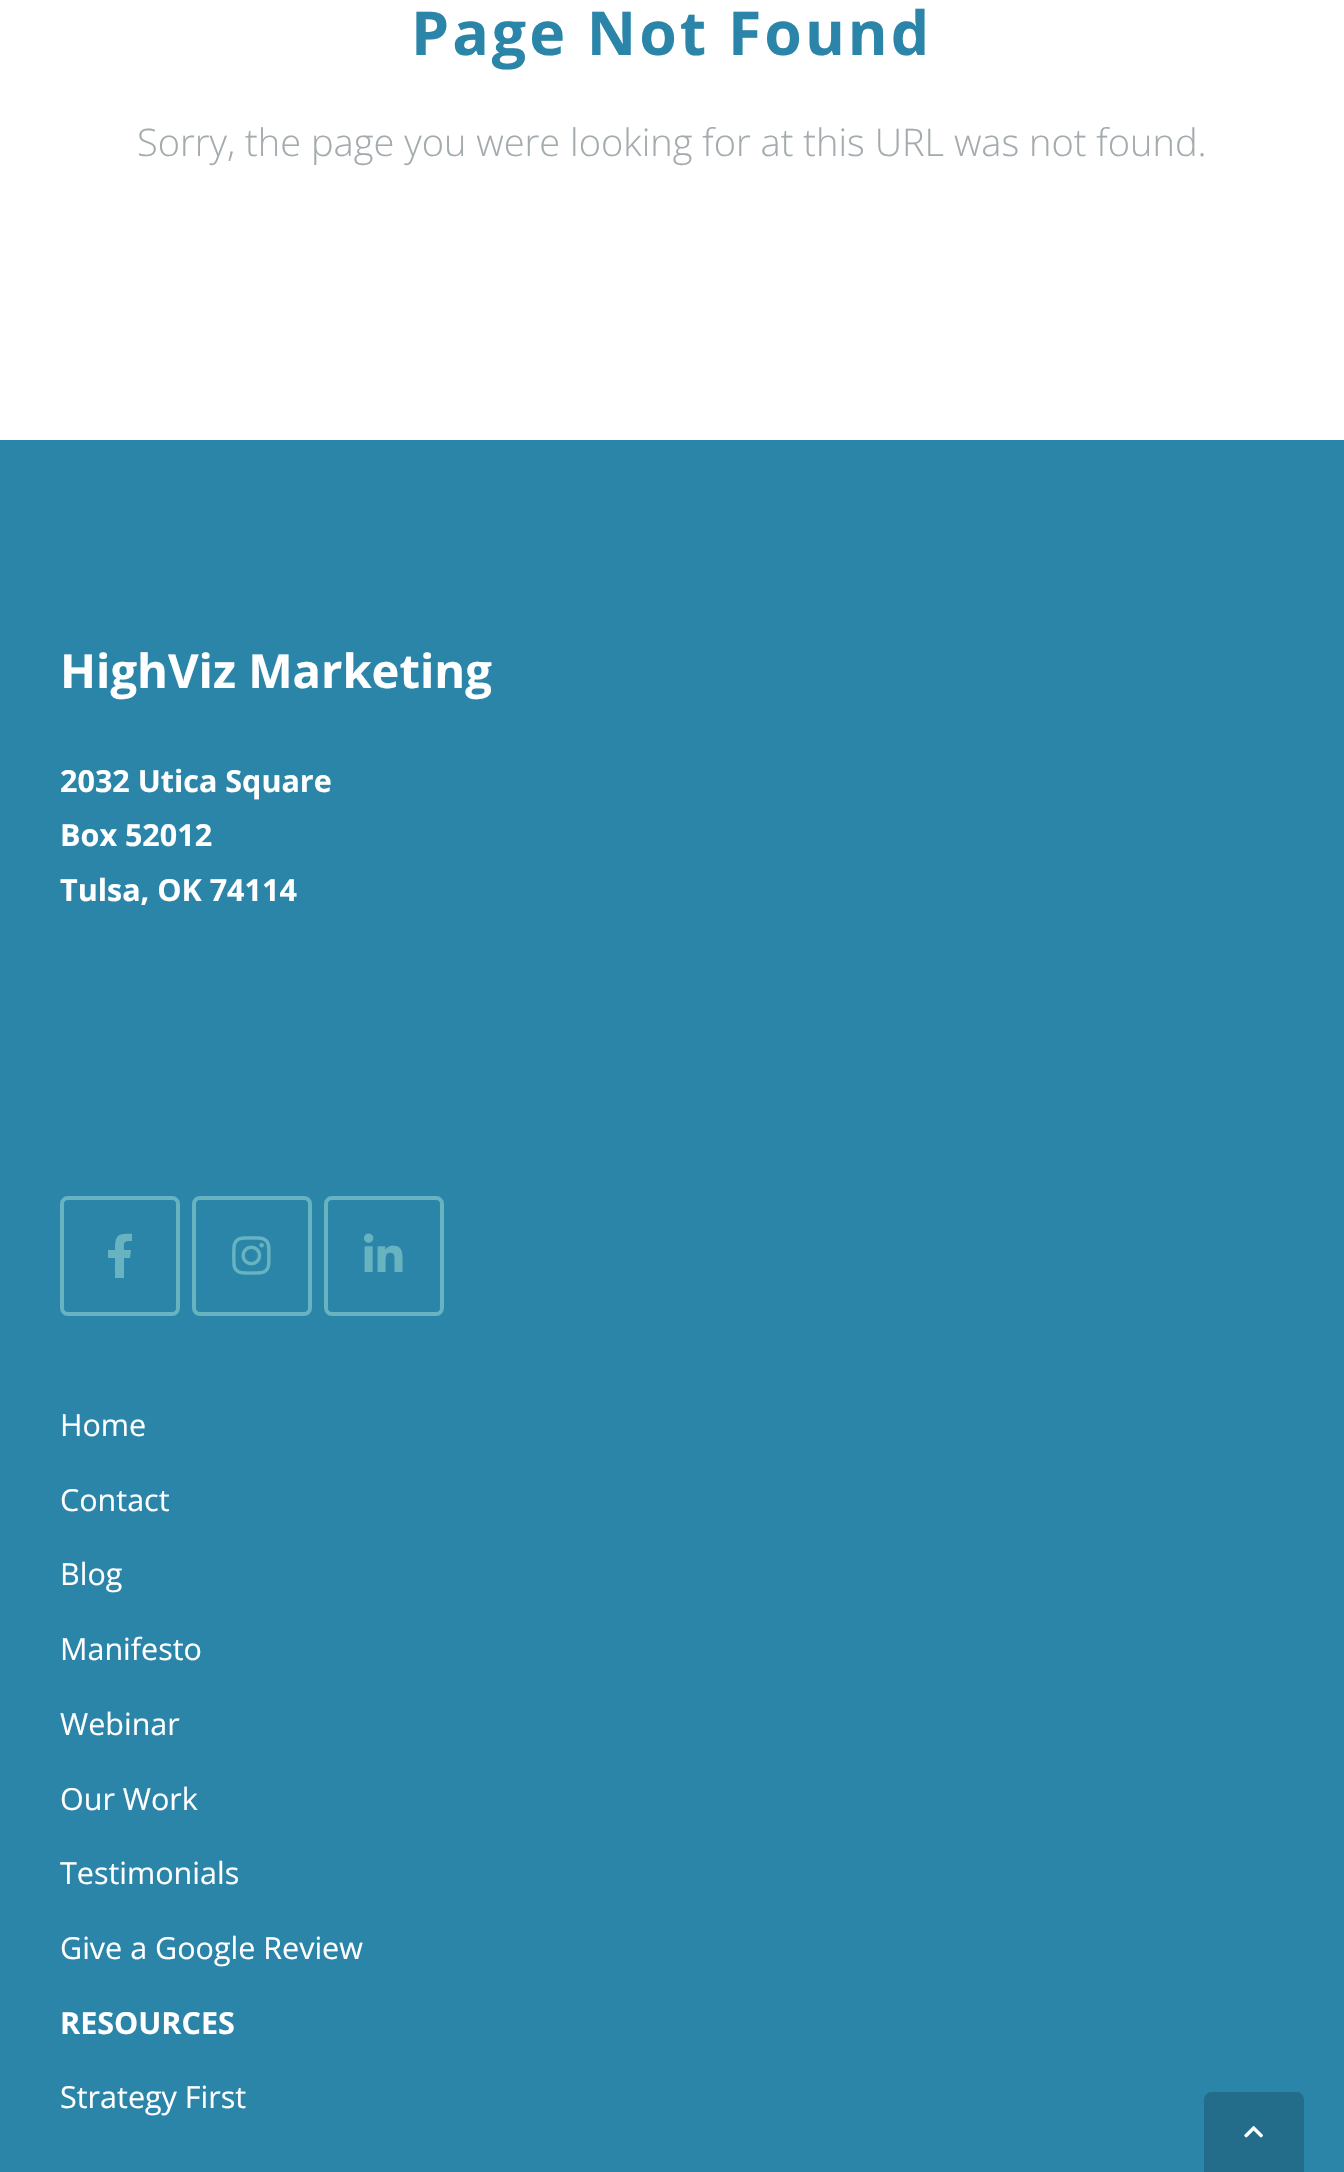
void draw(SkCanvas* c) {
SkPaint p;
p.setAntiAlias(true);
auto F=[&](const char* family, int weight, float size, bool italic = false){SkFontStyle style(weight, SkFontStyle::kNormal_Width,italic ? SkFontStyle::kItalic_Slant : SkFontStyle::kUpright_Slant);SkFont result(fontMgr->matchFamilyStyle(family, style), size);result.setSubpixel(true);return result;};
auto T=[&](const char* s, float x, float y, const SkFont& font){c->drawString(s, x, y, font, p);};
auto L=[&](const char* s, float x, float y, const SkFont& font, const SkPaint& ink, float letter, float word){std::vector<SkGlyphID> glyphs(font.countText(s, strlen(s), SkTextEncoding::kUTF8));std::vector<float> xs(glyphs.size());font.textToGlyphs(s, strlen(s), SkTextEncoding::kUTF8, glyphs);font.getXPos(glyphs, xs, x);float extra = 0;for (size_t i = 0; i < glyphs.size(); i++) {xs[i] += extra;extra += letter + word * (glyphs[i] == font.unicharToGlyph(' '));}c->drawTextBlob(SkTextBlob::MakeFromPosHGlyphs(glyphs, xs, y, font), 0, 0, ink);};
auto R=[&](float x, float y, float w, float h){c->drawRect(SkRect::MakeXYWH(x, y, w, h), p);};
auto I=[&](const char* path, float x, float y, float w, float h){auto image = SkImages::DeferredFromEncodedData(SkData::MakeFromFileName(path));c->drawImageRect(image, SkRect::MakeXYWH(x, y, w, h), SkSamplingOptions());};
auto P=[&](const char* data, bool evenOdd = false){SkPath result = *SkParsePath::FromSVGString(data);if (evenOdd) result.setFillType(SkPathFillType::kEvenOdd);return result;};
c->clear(0xffffffff);
auto f1 = F("Open Sans",700,60.75);
p.setColor(0xff2a85a9);
L("Page Not Found",411,55,f1,p,3,0);
auto f2 = F("Open Sans",300,38);
p.setColor(0xffa4abae);
T("Sorry, the page you were looking for at this URL was not found.",137,156,f2);
p.setColor(0xff2a85a9);
R(0,440,1344,1732);
auto f3 = F("Open Sans",700,47.1);
p.setColor(0xffffffff);
T("HighViz Marketing",60,688,f3);
auto f4 = F("Open Sans",700,30.5);
T("2032 Utica Square",60,792,f4);
T("Box 52012",60,846,f4);
T("Tulsa, OK 74114",60,901,f4);
p.setStroke(true);
p.setStrokeWidth(4);
p.setColor(0xff67b4c0);
c->drawRoundRect(SkRect::MakeXYWH(62,1198,116,116),6,6,p);
p.setStroke(false);
c->drawPath(P("M130 1258h-6v20h-9v-20h-7v-8h7c0-14 2-17 17-16v7c-9 0-8 1-8 9h7z"),p);
p.setStroke(true);
c->drawRoundRect(SkRect::MakeXYWH(194,1198,116,116),6,6,p);
I("1.png",232,1236,39,39);
c->drawRoundRect(SkRect::MakeXYWH(326,1198,116,116),6,6,p);
I("2.png",364,1233,39,39);
auto f5 = F("Open Sans",400,30.5);
p.setStroke(false);
p.setColor(0xffffffff);
T("Home",60,1436,f5);
T("Contact",60,1511,f5);
T("Blog",60,1585,f5);
T("Manifesto",60,1660,f5);
T("Webinar",60,1735,f5);
T("Our Work",60,1810,f5);
T("Testimonials",60,1884,f5);
T("Give a Google Review",60,1959,f5);
T("RESOURCES",60,2034,f4);
T("Strategy First",60,2108,f5);
p.setColor(0xff236d8b);
c->drawPath(P("M1212 2092h84c4.5 0 8 3.5 8 8v72h-100v-72c0-4.5 3.5-8 8-8z"),p);
I("3.png",1244,2126,19,12);
}
